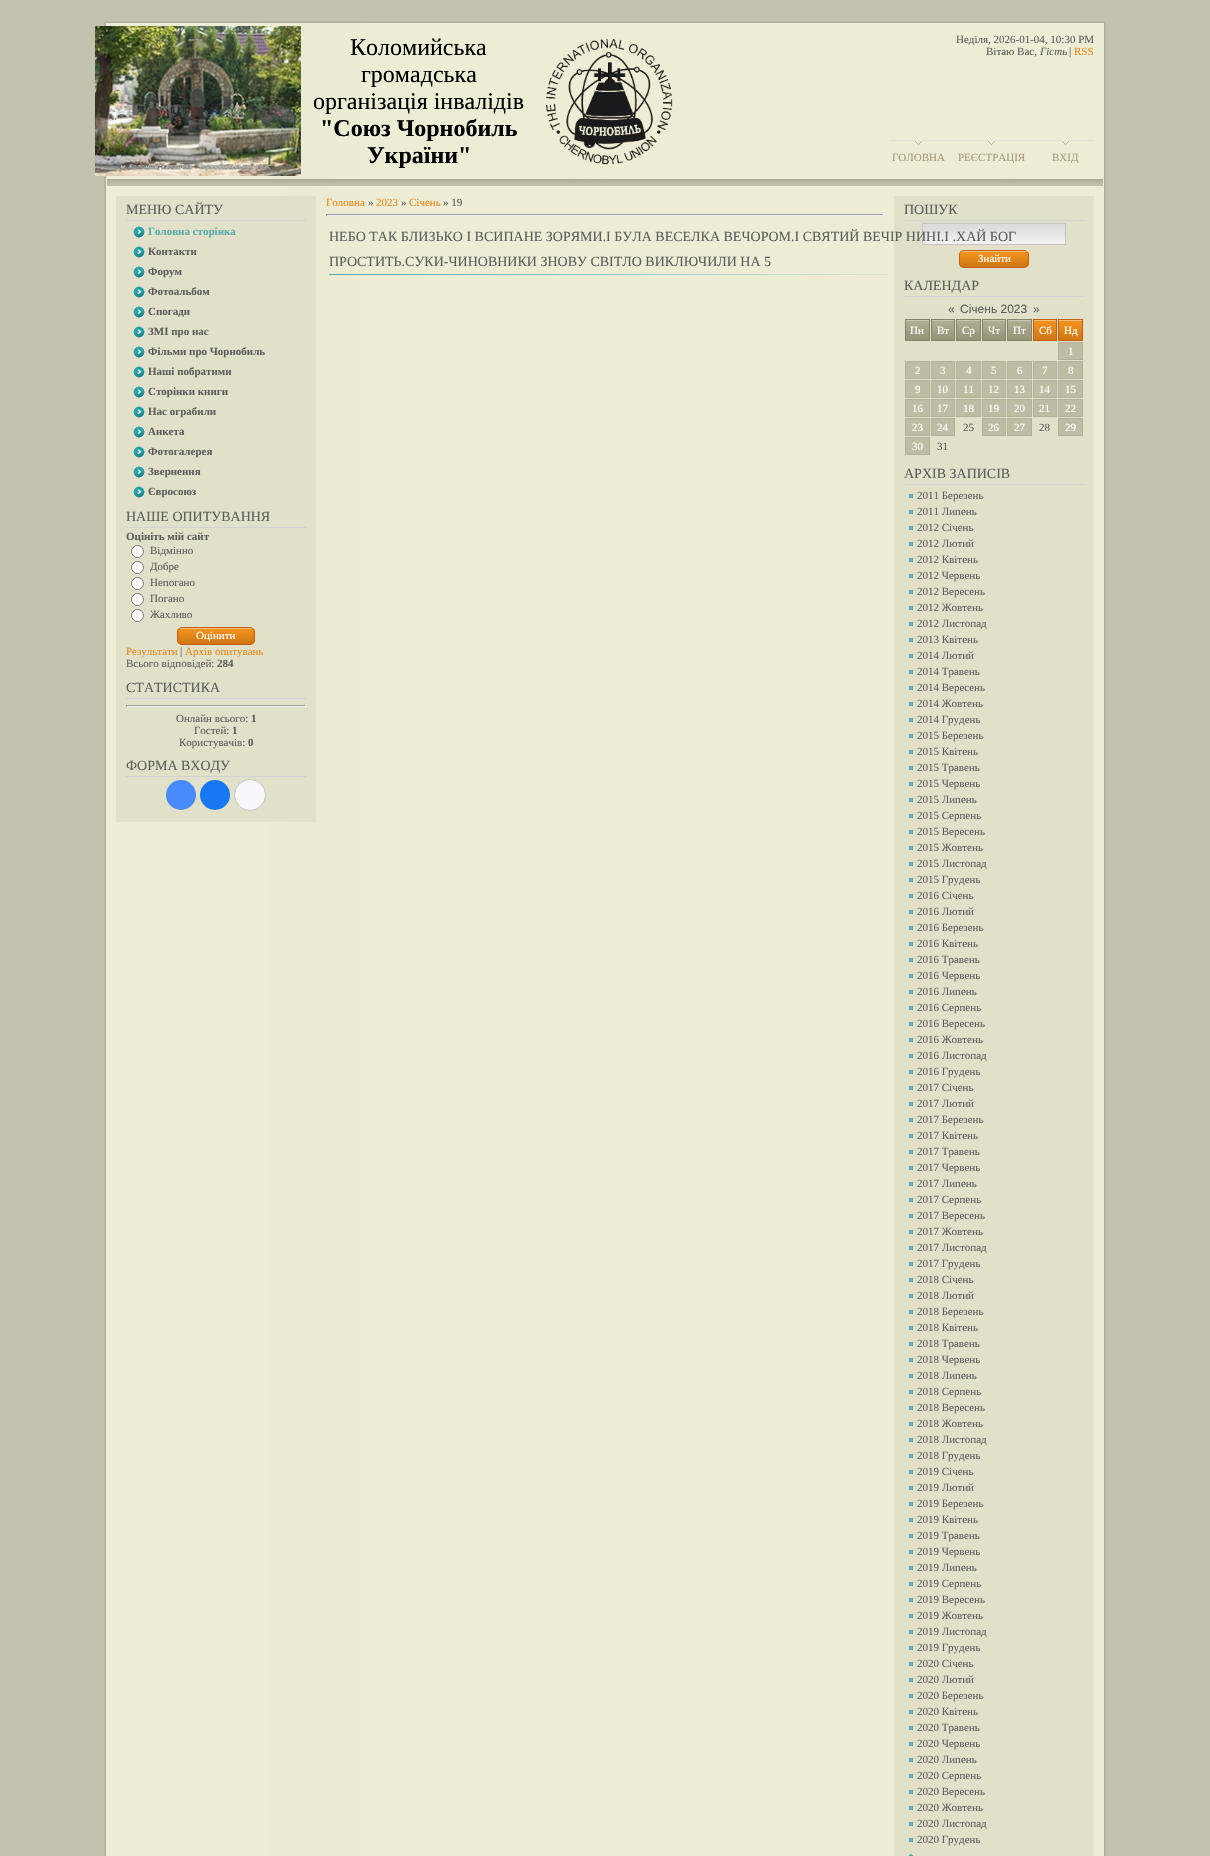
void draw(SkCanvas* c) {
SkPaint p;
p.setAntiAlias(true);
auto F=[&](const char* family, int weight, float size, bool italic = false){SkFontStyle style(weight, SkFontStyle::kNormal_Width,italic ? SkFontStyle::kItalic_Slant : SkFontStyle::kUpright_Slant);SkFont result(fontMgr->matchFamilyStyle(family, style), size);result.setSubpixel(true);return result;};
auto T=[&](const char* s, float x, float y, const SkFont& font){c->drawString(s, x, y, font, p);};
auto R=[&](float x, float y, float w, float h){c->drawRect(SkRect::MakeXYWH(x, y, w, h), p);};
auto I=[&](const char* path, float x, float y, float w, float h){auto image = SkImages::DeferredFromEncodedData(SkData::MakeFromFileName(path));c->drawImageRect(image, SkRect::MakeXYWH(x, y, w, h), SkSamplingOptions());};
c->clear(0xffc3c2ae);
I("1.png",104,21,1002,2);
I("2.png",104,23,1002,1833);
I("3.png",95,26,206,150);
auto f1 = F("Liberation Serif",400,24);
p.setColor(0xff000000);
T("Коломийська",350,55,f1);
T("громадська",361,82,f1);
T("організація інвалідів",313,109,f1);
auto f2 = F("Liberation Serif",700,24);
T("\"Союз Чорнобиль",320,136,f2);
T("України\"",367,163,f2);
I("4.png",545,39,128,126);
auto f3 = F("Liberation Serif",400,11);
p.setColor(0xff5d5d5d);
T("Неділя, 2026-01-04, 10:30 PM",956,43,f3);
T("Вітаю Вас,",986,55,f3);
auto f4 = F("Liberation Serif",400,11,true);
T("Гість",1040,55,f4);
T("|",1069,55,f3);
p.setColor(0xffe5891c);
T("RSS",1074,55,f3);
I("5.png",890,140,57,5);
p.setColor(0xffa79a7a);
T("ГОЛОВНА",892,161,f3);
I("6.png",947,140,90,5);
T("РЕЄСТРАЦІЯ",958,161,f3);
I("5.png",1037,140,57,5);
T("ВХІД",1052,161,f3);
I("7.png",107,179,996,7);
p.setColor(0xffe1e0c9);
R(116,196,200,626);
auto f5 = F("Liberation Serif",400,14);
p.setColor(0xff5d5d5d);
T("МЕНЮ САЙТУ",126,214,f5);
p.setColor(0xffd2d2d2);
R(126,220,180,1);
I("8.png",133,226,12,12);
auto f6 = F("Liberation Serif",700,11);
p.setColor(0xff57acac);
T("Головна сторінка",148,235,f6);
I("8.png",133,246,12,12);
p.setColor(0xff5d5d5d);
T("Контакти",148,255,f6);
I("8.png",133,266,12,12);
T("Форум",148,275,f6);
I("8.png",133,286,12,12);
T("Фотоальбом",148,295,f6);
I("8.png",133,306,12,12);
T("Спогади",148,315,f6);
I("8.png",133,326,12,12);
T("ЗМІ про нас",148,335,f6);
I("8.png",133,346,12,12);
T("Фільми про Чорнобиль",148,355,f6);
I("8.png",133,366,12,12);
T("Наші побратими",148,375,f6);
I("8.png",133,386,12,12);
T("Сторінки книги",148,395,f6);
I("8.png",133,406,12,12);
T("Нас ограбили",148,415,f6);
I("8.png",133,426,12,12);
T("Анкета",148,435,f6);
I("8.png",133,446,12,12);
T("Фотогалерея",148,455,f6);
I("8.png",133,466,12,12);
T("Звернення",148,475,f6);
I("8.png",133,486,12,12);
T("Євросоюз",148,495,f6);
T("НАШЕ ОПИТУВАННЯ",126,521,f5);
p.setColor(0xffd2d2d2);
R(126,527,180,1);
p.setColor(0xff5d5d5d);
T("Оцініть мій сайт",126,540,f6);
p.setColor(0xffffffff);
c->drawCircle(137.5,551.5,6,p);
p.setStroke(true);
p.setStrokeWidth(1);
p.setColor(0xff767676);
c->drawCircle(137.5,551.5,6,p);
p.setStroke(false);
p.setColor(0xff5d5d5d);
T("Відмінно",150,554,f3);
p.setColor(0xffffffff);
c->drawCircle(137.5,567.5,6,p);
p.setStroke(true);
p.setColor(0xff767676);
c->drawCircle(137.5,567.5,6,p);
p.setStroke(false);
p.setColor(0xff5d5d5d);
T("Добре",150,570,f3);
p.setColor(0xffffffff);
c->drawCircle(137.5,583.5,6,p);
p.setStroke(true);
p.setColor(0xff767676);
c->drawCircle(137.5,583.5,6,p);
p.setStroke(false);
p.setColor(0xff5d5d5d);
T("Непогано",150,586,f3);
p.setColor(0xffffffff);
c->drawCircle(137.5,599.5,6,p);
p.setStroke(true);
p.setColor(0xff767676);
c->drawCircle(137.5,599.5,6,p);
p.setStroke(false);
p.setColor(0xff5d5d5d);
T("Погано",150,602,f3);
p.setColor(0xffffffff);
c->drawCircle(137.5,615.5,6,p);
p.setStroke(true);
p.setColor(0xff767676);
c->drawCircle(137.5,615.5,6,p);
p.setStroke(false);
p.setColor(0xff5d5d5d);
T("Жахливо",150,618,f3);
I("9.png",177,628,78,17);
p.setStroke(true);
p.setColor(0xffc75d11);
c->drawRoundRect(SkRect::MakeXYWH(177.5,627.5,77,17),4.5,4.5,p);
p.setStroke(false);
p.setColor(0xffffffff);
T("Оцінити",196,639,f3);
p.setColor(0xffe5891c);
T("Результати",126,655,f3);
p.setColor(0xff5d5d5d);
T("|",180,655,f3);
p.setColor(0xffe5891c);
T("Архів опитувань",185,655,f3);
p.setColor(0xff5d5d5d);
T("Всього відповідей:",126,667,f3);
T("284",217,667,f6);
T("СТАТИСТИКА",126,692,f5);
p.setColor(0xffd2d2d2);
R(126,698,180,1);
p.setColor(0xff9f9f9f);
R(126,705,180,1);
p.setColor(0xffeeeeee);
R(305,705,1,2);
R(126,706,180,1);
p.setColor(0xff9f9f9f);
R(126,705,1,2);
p.setColor(0xff5d5d5d);
T("Онлайн всього:",176,722,f3);
T("1",251,722,f6);
T("Гостей:",194,734,f3);
T("1",232,734,f6);
T("Користувачів:",179,746,f3);
T("0",248,746,f6);
T("ФОРМА ВХОДУ",126,770,f5);
p.setColor(0xffd2d2d2);
R(126,776,180,1);
p.setColor(0xff498bfa);
c->drawCircle(181,795,15,p);
p.setColor(0xff1877f2);
c->drawCircle(215,795,15,p);
p.setColor(0xfff8f8fc);
c->drawCircle(250,795,15.5,p);
p.setStroke(true);
p.setColor(0xffc4c4c4);
c->drawCircle(250,795,15.5,p);
p.setStroke(false);
p.setColor(0xffe5891c);
T("Головна",326,206,f3);
p.setColor(0xff5d5d5d);
T("»",368,206,f3);
p.setColor(0xffe5891c);
T("2023",376,206,f3);
p.setColor(0xff5d5d5d);
T("»",401,206,f3);
p.setColor(0xffe5891c);
T("Січень",409,206,f3);
p.setColor(0xff5d5d5d);
T("» 19",443,206,f3);
p.setColor(0xff9f9f9f);
R(326,214,558,1);
p.setColor(0xffeeeeee);
R(883,214,1,2);
R(326,215,558,1);
p.setColor(0xff9f9f9f);
R(326,214,1,2);
p.setColor(0xffe1e0c9);
R(894,196,200,1660);
p.setColor(0xfff2f1f1);
R(923,240,142,4);
I("11.png",923,224,142,16);
p.setStroke(true);
p.setColor(0xffc5c5c5);
c->drawRect(SkRect::MakeXYWH(922.5,223.5,143,21),p);
p.setStroke(false);
p.setColor(0xff5d5d5d);
T("НЕБО ТАК БЛИЗЬКО І ВСИПАНЕ ЗОРЯМИ.І БУЛА ВЕСЕЛКА ВЕЧОРОМ.І СВЯТИЙ ВЕЧІР НИНІ.І .ХАЙ БОГ",329,241,f5);
T("ПРОСТИТЬ.СУКИ-ЧИНОВНИКИ ЗНОВУ СВІТЛО ВИКЛЮЧИЛИ НА 5",329,266,f5);
I("10.png",329,274,558,1);
T("ПОШУК",904,214,f5);
p.setColor(0xffd2d2d2);
R(904,220,180,1);
I("12.png",959,251,70,17);
p.setStroke(true);
p.setColor(0xffc75d11);
c->drawRoundRect(SkRect::MakeXYWH(959.5,250.5,69,17),4.5,4.5,p);
p.setStroke(false);
p.setColor(0xffffffff);
T("Знайти",978,262,f3);
p.setColor(0xff5d5d5d);
T("КАЛЕНДАР",904,290,f5);
p.setColor(0xffd2d2d2);
R(904,296,180,1);
auto f7 = F("Liberation Sans",400,12);
p.setColor(0xff5d5d5d);
T("«",948,313,f7);
T("Січень 2023",960,313,f7);
T("»",1033,313,f7);
I("13.png",906,320,23,20);
p.setStroke(true);
p.setColor(0xff85846b);
c->drawRect(SkRect::MakeXYWH(905.5,319.5,24,21),p);
p.setStroke(false);
p.setColor(0xffffffff);
T("Пн",910,334,f3);
I("14.png",932,320,22,20);
p.setStroke(true);
p.setColor(0xff85846b);
c->drawRect(SkRect::MakeXYWH(931.5,319.5,23,21),p);
p.setStroke(false);
p.setColor(0xffffffff);
T("Вт",937,334,f3);
I("13.png",957,320,23,20);
p.setStroke(true);
p.setColor(0xff85846b);
c->drawRect(SkRect::MakeXYWH(956.5,319.5,24,21),p);
p.setStroke(false);
p.setColor(0xffffffff);
T("Ср",962,334,f3);
I("14.png",983,320,22,20);
p.setStroke(true);
p.setColor(0xff85846b);
c->drawRect(SkRect::MakeXYWH(982.5,319.5,23,21),p);
p.setStroke(false);
p.setColor(0xffffffff);
T("Чт",988,334,f3);
I("13.png",1008,320,23,20);
p.setStroke(true);
p.setColor(0xff85846b);
c->drawRect(SkRect::MakeXYWH(1007.5,319.5,24,21),p);
p.setStroke(false);
p.setColor(0xffffffff);
T("Пт",1013,334,f3);
I("15.png",1034,320,22,20);
p.setStroke(true);
p.setColor(0xffc75d11);
c->drawRect(SkRect::MakeXYWH(1033.5,319.5,23,21),p);
p.setStroke(false);
p.setColor(0xffffffff);
T("Сб",1039,334,f3);
I("16.png",1059,320,23,20);
p.setStroke(true);
p.setColor(0xffc75d11);
c->drawRect(SkRect::MakeXYWH(1058.5,319.5,24,21),p);
p.setStroke(false);
p.setColor(0xffffffff);
T("Нд",1064,334,f3);
p.setColor(0xffbebda3);
c->drawRect(SkRect::MakeXYWH(1058.5,342.5,24,17),p);
p.setStroke(true);
p.setColor(0xffb1b09a);
c->drawRect(SkRect::MakeXYWH(1058.5,342.5,24,17),p);
p.setStroke(false);
p.setColor(0xffffffff);
T("1",1068,355,f3);
p.setColor(0xffbebda3);
c->drawRect(SkRect::MakeXYWH(905.5,361.5,24,17),p);
p.setStroke(true);
p.setColor(0xffb1b09a);
c->drawRect(SkRect::MakeXYWH(905.5,361.5,24,17),p);
p.setStroke(false);
p.setColor(0xffffffff);
T("2",915,374,f3);
p.setColor(0xffbebda3);
c->drawRect(SkRect::MakeXYWH(931.5,361.5,23,17),p);
p.setStroke(true);
p.setColor(0xffb1b09a);
c->drawRect(SkRect::MakeXYWH(931.5,361.5,23,17),p);
p.setStroke(false);
p.setColor(0xffffffff);
T("3",940,374,f3);
p.setColor(0xffbebda3);
c->drawRect(SkRect::MakeXYWH(956.5,361.5,24,17),p);
p.setStroke(true);
p.setColor(0xffb1b09a);
c->drawRect(SkRect::MakeXYWH(956.5,361.5,24,17),p);
p.setStroke(false);
p.setColor(0xffffffff);
T("4",966,374,f3);
p.setColor(0xffbebda3);
c->drawRect(SkRect::MakeXYWH(982.5,361.5,23,17),p);
p.setStroke(true);
p.setColor(0xffb1b09a);
c->drawRect(SkRect::MakeXYWH(982.5,361.5,23,17),p);
p.setStroke(false);
p.setColor(0xffffffff);
T("5",991,374,f3);
p.setColor(0xffbebda3);
c->drawRect(SkRect::MakeXYWH(1007.5,361.5,24,17),p);
p.setStroke(true);
p.setColor(0xffb1b09a);
c->drawRect(SkRect::MakeXYWH(1007.5,361.5,24,17),p);
p.setStroke(false);
p.setColor(0xffffffff);
T("6",1017,374,f3);
p.setColor(0xffbebda3);
c->drawRect(SkRect::MakeXYWH(1033.5,361.5,23,17),p);
p.setStroke(true);
p.setColor(0xffb1b09a);
c->drawRect(SkRect::MakeXYWH(1033.5,361.5,23,17),p);
p.setStroke(false);
p.setColor(0xffffffff);
T("7",1042,374,f3);
p.setColor(0xffbebda3);
c->drawRect(SkRect::MakeXYWH(1058.5,361.5,24,17),p);
p.setStroke(true);
p.setColor(0xffb1b09a);
c->drawRect(SkRect::MakeXYWH(1058.5,361.5,24,17),p);
p.setStroke(false);
p.setColor(0xffffffff);
T("8",1068,374,f3);
p.setColor(0xffbebda3);
c->drawRect(SkRect::MakeXYWH(905.5,380.5,24,17),p);
p.setStroke(true);
p.setColor(0xffb1b09a);
c->drawRect(SkRect::MakeXYWH(905.5,380.5,24,17),p);
p.setStroke(false);
p.setColor(0xffffffff);
T("9",915,393,f3);
p.setColor(0xffbebda3);
c->drawRect(SkRect::MakeXYWH(931.5,380.5,23,17),p);
p.setStroke(true);
p.setColor(0xffb1b09a);
c->drawRect(SkRect::MakeXYWH(931.5,380.5,23,17),p);
p.setStroke(false);
p.setColor(0xffffffff);
T("10",937,393,f3);
p.setColor(0xffbebda3);
c->drawRect(SkRect::MakeXYWH(956.5,380.5,24,17),p);
p.setStroke(true);
p.setColor(0xffb1b09a);
c->drawRect(SkRect::MakeXYWH(956.5,380.5,24,17),p);
p.setStroke(false);
p.setColor(0xffffffff);
T("11",963,393,f3);
p.setColor(0xffbebda3);
c->drawRect(SkRect::MakeXYWH(982.5,380.5,23,17),p);
p.setStroke(true);
p.setColor(0xffb1b09a);
c->drawRect(SkRect::MakeXYWH(982.5,380.5,23,17),p);
p.setStroke(false);
p.setColor(0xffffffff);
T("12",988,393,f3);
p.setColor(0xffbebda3);
c->drawRect(SkRect::MakeXYWH(1007.5,380.5,24,17),p);
p.setStroke(true);
p.setColor(0xffb1b09a);
c->drawRect(SkRect::MakeXYWH(1007.5,380.5,24,17),p);
p.setStroke(false);
p.setColor(0xffffffff);
T("13",1014,393,f3);
p.setColor(0xffbebda3);
c->drawRect(SkRect::MakeXYWH(1033.5,380.5,23,17),p);
p.setStroke(true);
p.setColor(0xffb1b09a);
c->drawRect(SkRect::MakeXYWH(1033.5,380.5,23,17),p);
p.setStroke(false);
p.setColor(0xffffffff);
T("14",1039,393,f3);
p.setColor(0xffbebda3);
c->drawRect(SkRect::MakeXYWH(1058.5,380.5,24,17),p);
p.setStroke(true);
p.setColor(0xffb1b09a);
c->drawRect(SkRect::MakeXYWH(1058.5,380.5,24,17),p);
p.setStroke(false);
p.setColor(0xffffffff);
T("15",1065,393,f3);
p.setColor(0xffbebda3);
c->drawRect(SkRect::MakeXYWH(905.5,399.5,24,17),p);
p.setStroke(true);
p.setColor(0xffb1b09a);
c->drawRect(SkRect::MakeXYWH(905.5,399.5,24,17),p);
p.setStroke(false);
p.setColor(0xffffffff);
T("16",912,412,f3);
p.setColor(0xffbebda3);
c->drawRect(SkRect::MakeXYWH(931.5,399.5,23,17),p);
p.setStroke(true);
p.setColor(0xffb1b09a);
c->drawRect(SkRect::MakeXYWH(931.5,399.5,23,17),p);
p.setStroke(false);
p.setColor(0xffffffff);
T("17",937,412,f3);
p.setColor(0xffbebda3);
c->drawRect(SkRect::MakeXYWH(956.5,399.5,24,17),p);
p.setStroke(true);
p.setColor(0xffb1b09a);
c->drawRect(SkRect::MakeXYWH(956.5,399.5,24,17),p);
p.setStroke(false);
p.setColor(0xffffffff);
T("18",963,412,f3);
p.setColor(0xffbebda3);
c->drawRect(SkRect::MakeXYWH(982.5,399.5,23,17),p);
p.setStroke(true);
p.setColor(0xffb1b09a);
c->drawRect(SkRect::MakeXYWH(982.5,399.5,23,17),p);
p.setStroke(false);
p.setColor(0xffffffff);
T("19",988,412,f3);
p.setColor(0xffbebda3);
c->drawRect(SkRect::MakeXYWH(1007.5,399.5,24,17),p);
p.setStroke(true);
p.setColor(0xffb1b09a);
c->drawRect(SkRect::MakeXYWH(1007.5,399.5,24,17),p);
p.setStroke(false);
p.setColor(0xffffffff);
T("20",1014,412,f3);
p.setColor(0xffbebda3);
c->drawRect(SkRect::MakeXYWH(1033.5,399.5,23,17),p);
p.setStroke(true);
p.setColor(0xffb1b09a);
c->drawRect(SkRect::MakeXYWH(1033.5,399.5,23,17),p);
p.setStroke(false);
p.setColor(0xffffffff);
T("21",1039,412,f3);
p.setColor(0xffbebda3);
c->drawRect(SkRect::MakeXYWH(1058.5,399.5,24,17),p);
p.setStroke(true);
p.setColor(0xffb1b09a);
c->drawRect(SkRect::MakeXYWH(1058.5,399.5,24,17),p);
p.setStroke(false);
p.setColor(0xffffffff);
T("22",1065,412,f3);
p.setColor(0xffbebda3);
c->drawRect(SkRect::MakeXYWH(905.5,418.5,24,17),p);
p.setStroke(true);
p.setColor(0xffb1b09a);
c->drawRect(SkRect::MakeXYWH(905.5,418.5,24,17),p);
p.setStroke(false);
p.setColor(0xffffffff);
T("23",912,431,f3);
p.setColor(0xffbebda3);
c->drawRect(SkRect::MakeXYWH(931.5,418.5,23,17),p);
p.setStroke(true);
p.setColor(0xffb1b09a);
c->drawRect(SkRect::MakeXYWH(931.5,418.5,23,17),p);
p.setStroke(false);
p.setColor(0xffffffff);
T("24",937,431,f3);
p.setColor(0xff5d5d5d);
T("25",963,431,f3);
p.setColor(0xffbebda3);
c->drawRect(SkRect::MakeXYWH(982.5,418.5,23,17),p);
p.setStroke(true);
p.setColor(0xffb1b09a);
c->drawRect(SkRect::MakeXYWH(982.5,418.5,23,17),p);
p.setStroke(false);
p.setColor(0xffffffff);
T("26",988,431,f3);
p.setColor(0xffbebda3);
c->drawRect(SkRect::MakeXYWH(1007.5,418.5,24,17),p);
p.setStroke(true);
p.setColor(0xffb1b09a);
c->drawRect(SkRect::MakeXYWH(1007.5,418.5,24,17),p);
p.setStroke(false);
p.setColor(0xffffffff);
T("27",1014,431,f3);
p.setColor(0xff5d5d5d);
T("28",1039,431,f3);
p.setColor(0xffbebda3);
c->drawRect(SkRect::MakeXYWH(1058.5,418.5,24,17),p);
p.setStroke(true);
p.setColor(0xffb1b09a);
c->drawRect(SkRect::MakeXYWH(1058.5,418.5,24,17),p);
p.setStroke(false);
p.setColor(0xffffffff);
T("29",1065,431,f3);
p.setColor(0xffbebda3);
c->drawRect(SkRect::MakeXYWH(905.5,437.5,24,17),p);
p.setStroke(true);
p.setColor(0xffb1b09a);
c->drawRect(SkRect::MakeXYWH(905.5,437.5,24,17),p);
p.setStroke(false);
p.setColor(0xffffffff);
T("30",912,450,f3);
p.setColor(0xff5d5d5d);
T("31",937,450,f3);
T("АРХІВ ЗАПИСІВ",904,478,f5);
p.setColor(0xffd2d2d2);
R(904,484,180,1);
p.setColor(0xff5d5d5d);
T("2011 Березень",917,499,f3);
p.setColor(0xff57acac);
R(909,494,4,4);
p.setColor(0xff5d5d5d);
T("2011 Липень",917,515,f3);
p.setColor(0xff57acac);
R(909,510,4,4);
p.setColor(0xff5d5d5d);
T("2012 Січень",917,531,f3);
p.setColor(0xff57acac);
R(909,526,4,4);
p.setColor(0xff5d5d5d);
T("2012 Лютий",917,547,f3);
p.setColor(0xff57acac);
R(909,542,4,4);
p.setColor(0xff5d5d5d);
T("2012 Квітень",917,563,f3);
p.setColor(0xff57acac);
R(909,558,4,4);
p.setColor(0xff5d5d5d);
T("2012 Червень",917,579,f3);
p.setColor(0xff57acac);
R(909,574,4,4);
p.setColor(0xff5d5d5d);
T("2012 Вересень",917,595,f3);
p.setColor(0xff57acac);
R(909,590,4,4);
p.setColor(0xff5d5d5d);
T("2012 Жовтень",917,611,f3);
p.setColor(0xff57acac);
R(909,606,4,4);
p.setColor(0xff5d5d5d);
T("2012 Листопад",917,627,f3);
p.setColor(0xff57acac);
R(909,622,4,4);
p.setColor(0xff5d5d5d);
T("2013 Квітень",917,643,f3);
p.setColor(0xff57acac);
R(909,638,4,4);
p.setColor(0xff5d5d5d);
T("2014 Лютий",917,659,f3);
p.setColor(0xff57acac);
R(909,654,4,4);
p.setColor(0xff5d5d5d);
T("2014 Травень",917,675,f3);
p.setColor(0xff57acac);
R(909,670,4,4);
p.setColor(0xff5d5d5d);
T("2014 Вересень",917,691,f3);
p.setColor(0xff57acac);
R(909,686,4,4);
p.setColor(0xff5d5d5d);
T("2014 Жовтень",917,707,f3);
p.setColor(0xff57acac);
R(909,702,4,4);
p.setColor(0xff5d5d5d);
T("2014 Грудень",917,723,f3);
p.setColor(0xff57acac);
R(909,718,4,4);
p.setColor(0xff5d5d5d);
T("2015 Березень",917,739,f3);
p.setColor(0xff57acac);
R(909,734,4,4);
p.setColor(0xff5d5d5d);
T("2015 Квітень",917,755,f3);
p.setColor(0xff57acac);
R(909,750,4,4);
p.setColor(0xff5d5d5d);
T("2015 Травень",917,771,f3);
p.setColor(0xff57acac);
R(909,766,4,4);
p.setColor(0xff5d5d5d);
T("2015 Червень",917,787,f3);
p.setColor(0xff57acac);
R(909,782,4,4);
p.setColor(0xff5d5d5d);
T("2015 Липень",917,803,f3);
p.setColor(0xff57acac);
R(909,798,4,4);
p.setColor(0xff5d5d5d);
T("2015 Серпень",917,819,f3);
p.setColor(0xff57acac);
R(909,814,4,4);
p.setColor(0xff5d5d5d);
T("2015 Вересень",917,835,f3);
p.setColor(0xff57acac);
R(909,830,4,4);
p.setColor(0xff5d5d5d);
T("2015 Жовтень",917,851,f3);
p.setColor(0xff57acac);
R(909,846,4,4);
p.setColor(0xff5d5d5d);
T("2015 Листопад",917,867,f3);
p.setColor(0xff57acac);
R(909,862,4,4);
p.setColor(0xff5d5d5d);
T("2015 Грудень",917,883,f3);
p.setColor(0xff57acac);
R(909,878,4,4);
p.setColor(0xff5d5d5d);
T("2016 Січень",917,899,f3);
p.setColor(0xff57acac);
R(909,894,4,4);
p.setColor(0xff5d5d5d);
T("2016 Лютий",917,915,f3);
p.setColor(0xff57acac);
R(909,910,4,4);
p.setColor(0xff5d5d5d);
T("2016 Березень",917,931,f3);
p.setColor(0xff57acac);
R(909,926,4,4);
p.setColor(0xff5d5d5d);
T("2016 Квітень",917,947,f3);
p.setColor(0xff57acac);
R(909,942,4,4);
p.setColor(0xff5d5d5d);
T("2016 Травень",917,963,f3);
p.setColor(0xff57acac);
R(909,958,4,4);
p.setColor(0xff5d5d5d);
T("2016 Червень",917,979,f3);
p.setColor(0xff57acac);
R(909,974,4,4);
p.setColor(0xff5d5d5d);
T("2016 Липень",917,995,f3);
p.setColor(0xff57acac);
R(909,990,4,4);
p.setColor(0xff5d5d5d);
T("2016 Серпень",917,1011,f3);
p.setColor(0xff57acac);
R(909,1006,4,4);
p.setColor(0xff5d5d5d);
T("2016 Вересень",917,1027,f3);
p.setColor(0xff57acac);
R(909,1022,4,4);
p.setColor(0xff5d5d5d);
T("2016 Жовтень",917,1043,f3);
p.setColor(0xff57acac);
R(909,1038,4,4);
p.setColor(0xff5d5d5d);
T("2016 Листопад",917,1059,f3);
p.setColor(0xff57acac);
R(909,1054,4,4);
p.setColor(0xff5d5d5d);
T("2016 Грудень",917,1075,f3);
p.setColor(0xff57acac);
R(909,1070,4,4);
p.setColor(0xff5d5d5d);
T("2017 Січень",917,1091,f3);
p.setColor(0xff57acac);
R(909,1086,4,4);
p.setColor(0xff5d5d5d);
T("2017 Лютий",917,1107,f3);
p.setColor(0xff57acac);
R(909,1102,4,4);
p.setColor(0xff5d5d5d);
T("2017 Березень",917,1123,f3);
p.setColor(0xff57acac);
R(909,1118,4,4);
p.setColor(0xff5d5d5d);
T("2017 Квітень",917,1139,f3);
p.setColor(0xff57acac);
R(909,1134,4,4);
p.setColor(0xff5d5d5d);
T("2017 Травень",917,1155,f3);
p.setColor(0xff57acac);
R(909,1150,4,4);
p.setColor(0xff5d5d5d);
T("2017 Червень",917,1171,f3);
p.setColor(0xff57acac);
R(909,1166,4,4);
p.setColor(0xff5d5d5d);
T("2017 Липень",917,1187,f3);
p.setColor(0xff57acac);
R(909,1182,4,4);
p.setColor(0xff5d5d5d);
T("2017 Серпень",917,1203,f3);
p.setColor(0xff57acac);
R(909,1198,4,4);
p.setColor(0xff5d5d5d);
T("2017 Вересень",917,1219,f3);
p.setColor(0xff57acac);
R(909,1214,4,4);
p.setColor(0xff5d5d5d);
T("2017 Жовтень",917,1235,f3);
p.setColor(0xff57acac);
R(909,1230,4,4);
p.setColor(0xff5d5d5d);
T("2017 Листопад",917,1251,f3);
p.setColor(0xff57acac);
R(909,1246,4,4);
p.setColor(0xff5d5d5d);
T("2017 Грудень",917,1267,f3);
p.setColor(0xff57acac);
R(909,1262,4,4);
p.setColor(0xff5d5d5d);
T("2018 Січень",917,1283,f3);
p.setColor(0xff57acac);
R(909,1278,4,4);
p.setColor(0xff5d5d5d);
T("2018 Лютий",917,1299,f3);
p.setColor(0xff57acac);
R(909,1294,4,4);
p.setColor(0xff5d5d5d);
T("2018 Березень",917,1315,f3);
p.setColor(0xff57acac);
R(909,1310,4,4);
p.setColor(0xff5d5d5d);
T("2018 Квітень",917,1331,f3);
p.setColor(0xff57acac);
R(909,1326,4,4);
p.setColor(0xff5d5d5d);
T("2018 Травень",917,1347,f3);
p.setColor(0xff57acac);
R(909,1342,4,4);
p.setColor(0xff5d5d5d);
T("2018 Червень",917,1363,f3);
p.setColor(0xff57acac);
R(909,1358,4,4);
p.setColor(0xff5d5d5d);
T("2018 Липень",917,1379,f3);
p.setColor(0xff57acac);
R(909,1374,4,4);
p.setColor(0xff5d5d5d);
T("2018 Серпень",917,1395,f3);
p.setColor(0xff57acac);
R(909,1390,4,4);
p.setColor(0xff5d5d5d);
T("2018 Вересень",917,1411,f3);
p.setColor(0xff57acac);
R(909,1406,4,4);
p.setColor(0xff5d5d5d);
T("2018 Жовтень",917,1427,f3);
p.setColor(0xff57acac);
R(909,1422,4,4);
p.setColor(0xff5d5d5d);
T("2018 Листопад",917,1443,f3);
p.setColor(0xff57acac);
R(909,1438,4,4);
p.setColor(0xff5d5d5d);
T("2018 Грудень",917,1459,f3);
p.setColor(0xff57acac);
R(909,1454,4,4);
p.setColor(0xff5d5d5d);
T("2019 Січень",917,1475,f3);
p.setColor(0xff57acac);
R(909,1470,4,4);
p.setColor(0xff5d5d5d);
T("2019 Лютий",917,1491,f3);
p.setColor(0xff57acac);
R(909,1486,4,4);
p.setColor(0xff5d5d5d);
T("2019 Березень",917,1507,f3);
p.setColor(0xff57acac);
R(909,1502,4,4);
p.setColor(0xff5d5d5d);
T("2019 Квітень",917,1523,f3);
p.setColor(0xff57acac);
R(909,1518,4,4);
p.setColor(0xff5d5d5d);
T("2019 Травень",917,1539,f3);
p.setColor(0xff57acac);
R(909,1534,4,4);
p.setColor(0xff5d5d5d);
T("2019 Червень",917,1555,f3);
p.setColor(0xff57acac);
R(909,1550,4,4);
p.setColor(0xff5d5d5d);
T("2019 Липень",917,1571,f3);
p.setColor(0xff57acac);
R(909,1566,4,4);
p.setColor(0xff5d5d5d);
T("2019 Серпень",917,1587,f3);
p.setColor(0xff57acac);
R(909,1582,4,4);
p.setColor(0xff5d5d5d);
T("2019 Вересень",917,1603,f3);
p.setColor(0xff57acac);
R(909,1598,4,4);
p.setColor(0xff5d5d5d);
T("2019 Жовтень",917,1619,f3);
p.setColor(0xff57acac);
R(909,1614,4,4);
p.setColor(0xff5d5d5d);
T("2019 Листопад",917,1635,f3);
p.setColor(0xff57acac);
R(909,1630,4,4);
p.setColor(0xff5d5d5d);
T("2019 Грудень",917,1651,f3);
p.setColor(0xff57acac);
R(909,1646,4,4);
p.setColor(0xff5d5d5d);
T("2020 Січень",917,1667,f3);
p.setColor(0xff57acac);
R(909,1662,4,4);
p.setColor(0xff5d5d5d);
T("2020 Лютий",917,1683,f3);
p.setColor(0xff57acac);
R(909,1678,4,4);
p.setColor(0xff5d5d5d);
T("2020 Березень",917,1699,f3);
p.setColor(0xff57acac);
R(909,1694,4,4);
p.setColor(0xff5d5d5d);
T("2020 Квітень",917,1715,f3);
p.setColor(0xff57acac);
R(909,1710,4,4);
p.setColor(0xff5d5d5d);
T("2020 Травень",917,1731,f3);
p.setColor(0xff57acac);
R(909,1726,4,4);
p.setColor(0xff5d5d5d);
T("2020 Червень",917,1747,f3);
p.setColor(0xff57acac);
R(909,1742,4,4);
p.setColor(0xff5d5d5d);
T("2020 Липень",917,1763,f3);
p.setColor(0xff57acac);
R(909,1758,4,4);
p.setColor(0xff5d5d5d);
T("2020 Серпень",917,1779,f3);
p.setColor(0xff57acac);
R(909,1774,4,4);
p.setColor(0xff5d5d5d);
T("2020 Вересень",917,1795,f3);
p.setColor(0xff57acac);
R(909,1790,4,4);
p.setColor(0xff5d5d5d);
T("2020 Жовтень",917,1811,f3);
p.setColor(0xff57acac);
R(909,1806,4,4);
p.setColor(0xff5d5d5d);
T("2020 Листопад",917,1827,f3);
p.setColor(0xff57acac);
R(909,1822,4,4);
p.setColor(0xff5d5d5d);
T("2020 Грудень",917,1843,f3);
p.setColor(0xff57acac);
R(909,1838,4,4);
I("17.png",909,1854,4,2);
}
